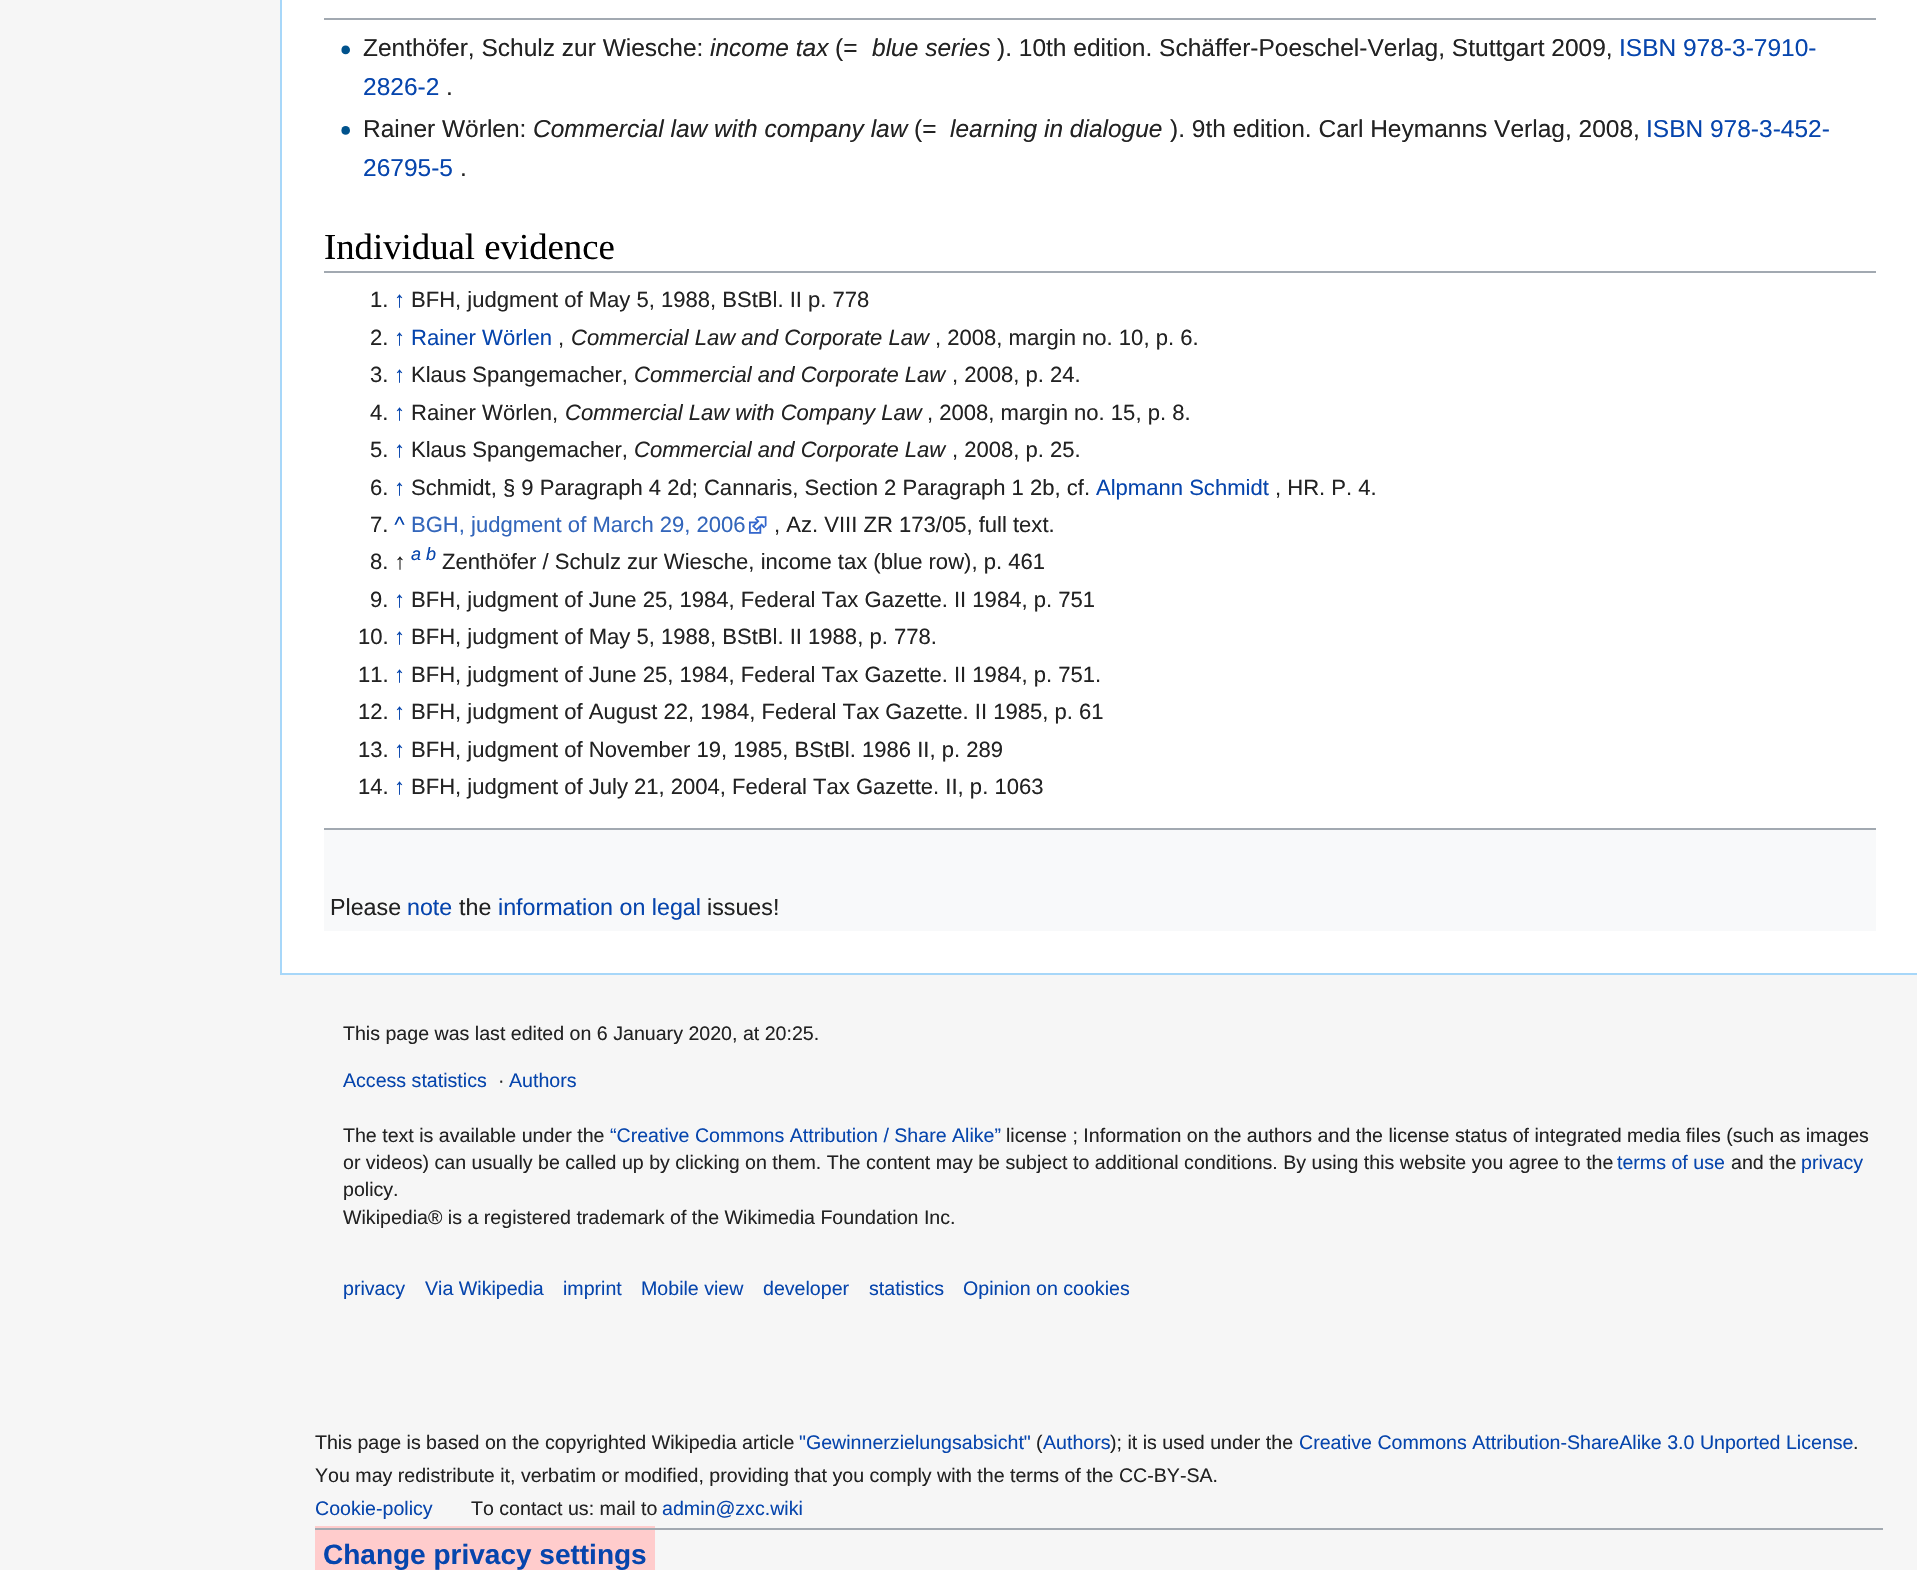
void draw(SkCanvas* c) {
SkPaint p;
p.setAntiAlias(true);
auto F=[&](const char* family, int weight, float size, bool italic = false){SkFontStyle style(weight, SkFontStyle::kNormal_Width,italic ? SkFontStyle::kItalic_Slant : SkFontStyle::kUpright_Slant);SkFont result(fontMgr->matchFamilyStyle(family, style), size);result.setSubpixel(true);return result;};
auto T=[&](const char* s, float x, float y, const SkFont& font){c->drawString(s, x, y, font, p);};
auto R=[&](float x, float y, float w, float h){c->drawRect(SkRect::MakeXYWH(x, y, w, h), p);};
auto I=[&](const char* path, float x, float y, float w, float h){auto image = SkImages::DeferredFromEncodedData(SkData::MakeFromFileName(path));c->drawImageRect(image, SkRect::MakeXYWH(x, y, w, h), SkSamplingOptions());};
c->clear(0xfff6f6f6);
p.setColor(0xffffffff);
R(282,0,1635,973);
p.setColor(0xffa7d7f9);
R(280,973,1637,2);
R(280,0,2,975);
p.setColor(0xffa2a9b1);
R(324,18,1552,2);
I("1.png",341,45,9,10);
auto f1 = F("Liberation Sans",400,24.5);
p.setColor(0xff222222);
T("Zenthöfer, Schulz zur Wiesche:",363,56,f1);
auto f2 = F("Liberation Sans",400,24.5,true);
T("income tax",710,56,f2);
T("(=",835,56,f1);
T("blue series",872,56,f2);
T("). 10th edition. Schäffer-Poeschel-Verlag, Stuttgart 2009,",997,56,f1);
p.setColor(0xff0645ad);
T("ISBN 978-3-7910-",1619,56,f1);
T("2826-2",363,95,f1);
p.setColor(0xff222222);
T(".",446,95,f1);
I("2.png",341,126,9,9);
T("Rainer Wörlen:",363,137,f1);
T("Commercial law with company law",533,137,f2);
T("(=",914,137,f1);
T("learning in dialogue",950,137,f2);
T("). 9th edition. Carl Heymanns Verlag, 2008,",1170,137,f1);
p.setColor(0xff0645ad);
T("ISBN 978-3-452-",1646,137,f1);
T("26795-5",363,176,f1);
p.setColor(0xff222222);
T(".",460,176,f1);
p.setColor(0xffa2a9b1);
R(324,271,1552,2);
auto f3 = F("Liberation Serif",400,36.75);
p.setColor(0xff000000);
T("Individual evidence",324,259,f3);
auto f4 = F("Liberation Sans",400,22.05);
p.setColor(0xff222222);
T("1.",370,307,f4);
auto f5 = F("Liberation Sans",400,22.05,true);
p.setColor(0xff0645ad);
T("↑",394,307,f5);
p.setColor(0xff222222);
T("BFH, judgment of May 5, 1988, BStBl. II p. 778",411,307,f4);
T("2.",370,345,f4);
p.setColor(0xff0645ad);
T("↑",394,345,f5);
T("Rainer Wörlen",411,345,f4);
p.setColor(0xff222222);
T(",",558,345,f4);
T("Commercial Law and Corporate Law",571,345,f5);
T(", 2008, margin no. 10, p. 6.",935,345,f4);
T("3.",370,382,f4);
p.setColor(0xff0645ad);
T("↑",394,382,f5);
p.setColor(0xff222222);
T("Klaus Spangemacher,",411,382,f4);
T("Commercial and Corporate Law",634,382,f5);
T(", 2008, p. 24.",952,382,f4);
T("4.",370,420,f4);
p.setColor(0xff0645ad);
T("↑",394,420,f5);
p.setColor(0xff222222);
T("Rainer Wörlen,",411,420,f4);
T("Commercial Law with Company Law",565,420,f5);
T(", 2008, margin no. 15, p. 8.",927,420,f4);
T("5.",370,457,f4);
p.setColor(0xff0645ad);
T("↑",394,457,f5);
p.setColor(0xff222222);
T("Klaus Spangemacher,",411,457,f4);
T("Commercial and Corporate Law",634,457,f5);
T(", 2008, p. 25.",952,457,f4);
T("6.",370,495,f4);
p.setColor(0xff0645ad);
T("↑",394,495,f5);
p.setColor(0xff222222);
T("Schmidt, § 9 Paragraph 4 2d; Cannaris, Section 2 Paragraph 1 2b, cf.",411,495,f4);
p.setColor(0xff0645ad);
T("Alpmann Schmidt",1096,495,f4);
p.setColor(0xff222222);
T(", HR. P. 4.",1275,495,f4);
T("7.",370,532,f4);
p.setColor(0xff0645ad);
T("^",394,532,f5);
p.setColor(0xff3366bb);
T("BGH, judgment of March 29, 2006",411,532,f4);
I("3.png",748,516,19,18);
p.setColor(0xff222222);
T(", Az. VIII ZR 173/05, full text.",774,532,f4);
T("8. ↑",370,569,f4);
auto f6 = F("Liberation Sans",400,18,true);
p.setColor(0xff0645ad);
T("a b",411,560,f6);
p.setColor(0xff222222);
T("Zenthöfer / Schulz zur Wiesche, income tax (blue row), p. 461",442,569,f4);
T("9.",370,607,f4);
p.setColor(0xff0645ad);
T("↑",394,607,f5);
p.setColor(0xff222222);
T("BFH, judgment of June 25, 1984, Federal Tax Gazette. II 1984, p. 751",411,607,f4);
T("10.",358,644,f4);
p.setColor(0xff0645ad);
T("↑",394,644,f5);
p.setColor(0xff222222);
T("BFH, judgment of May 5, 1988, BStBl. II 1988, p. 778.",411,644,f4);
T("11.",358,682,f4);
p.setColor(0xff0645ad);
T("↑",394,682,f5);
p.setColor(0xff222222);
T("BFH, judgment of June 25, 1984, Federal Tax Gazette. II 1984, p. 751.",411,682,f4);
T("12.",358,719,f4);
p.setColor(0xff0645ad);
T("↑",394,719,f5);
p.setColor(0xff222222);
T("BFH, judgment of August 22, 1984, Federal Tax Gazette. II 1985, p. 61",411,719,f4);
T("13.",358,757,f4);
p.setColor(0xff0645ad);
T("↑",394,757,f5);
p.setColor(0xff222222);
T("BFH, judgment of November 19, 1985, BStBl. 1986 II, p. 289",411,757,f4);
T("14.",358,794,f4);
p.setColor(0xff0645ad);
T("↑",394,794,f5);
p.setColor(0xff222222);
T("BFH, judgment of July 21, 2004, Federal Tax Gazette. II, p. 1063",411,794,f4);
p.setColor(0xfff8f9fa);
R(324,830,1552,101);
p.setColor(0xffa2a9b1);
R(324,828,1552,2);
auto f7 = F("Liberation Sans",400,23.25);
p.setColor(0xff222222);
T("Please",330,915,f7);
p.setColor(0xff0645ad);
T("note",407,915,f7);
p.setColor(0xff222222);
T("the",459,915,f7);
p.setColor(0xff0645ad);
T("information on legal",498,915,f7);
p.setColor(0xff222222);
T("issues!",707,915,f7);
auto f8 = F("Liberation Sans",400,19.6);
T("This page was last edited on 6 January 2020, at 20:25.",343,1040,f8);
p.setColor(0xff0645ad);
T("Access statistics",343,1087,f8);
p.setColor(0xff222222);
T("·",498,1087,f8);
p.setColor(0xff0645ad);
T("Authors",509,1087,f8);
p.setColor(0xff222222);
T("The text is available under the",343,1142,f8);
p.setColor(0xff0645ad);
T("“Creative Commons Attribution / Share Alike”",610,1142,f8);
p.setColor(0xff222222);
T("license ; Information on the authors and the license status of integrated media files (such as images",1006,1142,f8);
T("or videos) can usually be called up by clicking on them. The content may be subject to additional conditions. By using this website you agree to the",343,1169,f8);
p.setColor(0xff0645ad);
T("terms of use",1617,1169,f8);
p.setColor(0xff222222);
T("and the",1731,1169,f8);
p.setColor(0xff0645ad);
T("privacy",1801,1169,f8);
p.setColor(0xff222222);
T("policy.",343,1196,f8);
T("Wikipedia® is a registered trademark of the Wikimedia Foundation Inc.",343,1224,f8);
p.setColor(0xff0645ad);
T("privacy",343,1295,f8);
T("Via Wikipedia",425,1295,f8);
T("imprint",563,1295,f8);
T("Mobile view",641,1295,f8);
T("developer",763,1295,f8);
T("statistics",869,1295,f8);
T("Opinion on cookies",963,1295,f8);
p.setColor(0xff222222);
T("This page is based on the copyrighted Wikipedia article",315,1449,f8);
p.setColor(0xff0645ad);
T("\"Gewinnerzielungsabsicht\"",799,1449,f8);
p.setColor(0xff222222);
T("(",1036,1449,f8);
p.setColor(0xff0645ad);
T("Authors",1043,1449,f8);
p.setColor(0xff222222);
T("); it is used under the",1110,1449,f8);
p.setColor(0xff0645ad);
T("Creative Commons Attribution-ShareAlike 3.0 Unported License",1299,1449,f8);
p.setColor(0xff222222);
T(".",1853,1449,f8);
T("You may redistribute it, verbatim or modified, providing that you comply with the terms of the CC-BY-SA.",315,1482,f8);
p.setColor(0xff0645ad);
T("Cookie-policy",315,1515,f8);
p.setColor(0xff222222);
T("To contact us: mail to",471,1515,f8);
p.setColor(0xff0645ad);
T("admin@zxc.wiki",662,1515,f8);
p.setColor(0xffffcccc);
R(315,1526,340,44);
p.setColor(0xffa2a9b1);
R(315,1528,1568,2);
auto f9 = F("Liberation Sans",700,28);
p.setColor(0xff0645ad);
T("Change privacy settings",323,1564,f9);
}
